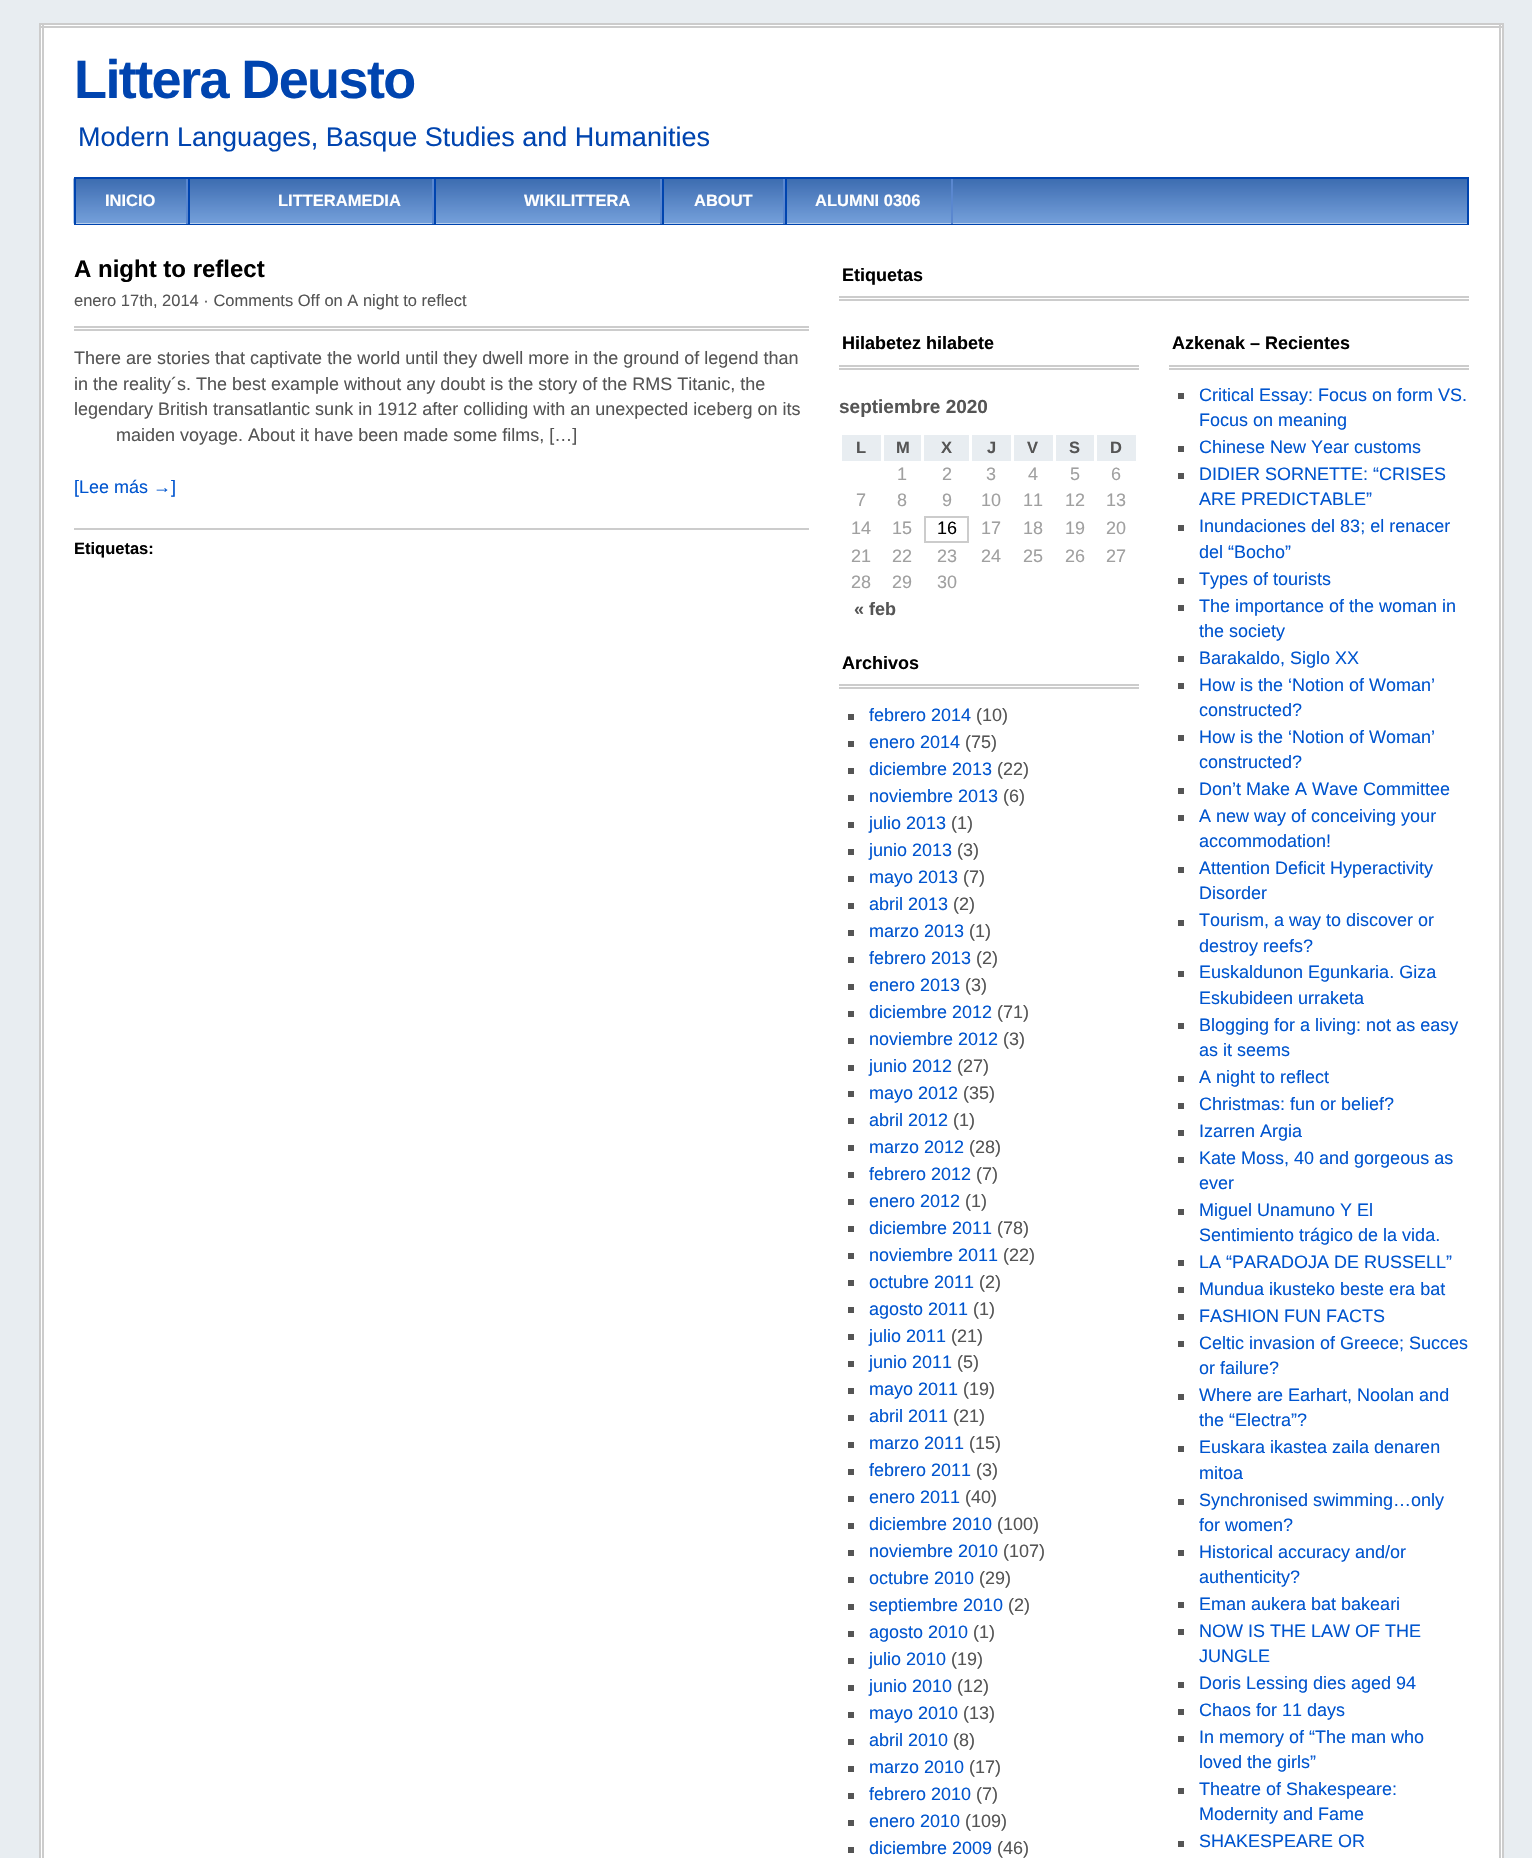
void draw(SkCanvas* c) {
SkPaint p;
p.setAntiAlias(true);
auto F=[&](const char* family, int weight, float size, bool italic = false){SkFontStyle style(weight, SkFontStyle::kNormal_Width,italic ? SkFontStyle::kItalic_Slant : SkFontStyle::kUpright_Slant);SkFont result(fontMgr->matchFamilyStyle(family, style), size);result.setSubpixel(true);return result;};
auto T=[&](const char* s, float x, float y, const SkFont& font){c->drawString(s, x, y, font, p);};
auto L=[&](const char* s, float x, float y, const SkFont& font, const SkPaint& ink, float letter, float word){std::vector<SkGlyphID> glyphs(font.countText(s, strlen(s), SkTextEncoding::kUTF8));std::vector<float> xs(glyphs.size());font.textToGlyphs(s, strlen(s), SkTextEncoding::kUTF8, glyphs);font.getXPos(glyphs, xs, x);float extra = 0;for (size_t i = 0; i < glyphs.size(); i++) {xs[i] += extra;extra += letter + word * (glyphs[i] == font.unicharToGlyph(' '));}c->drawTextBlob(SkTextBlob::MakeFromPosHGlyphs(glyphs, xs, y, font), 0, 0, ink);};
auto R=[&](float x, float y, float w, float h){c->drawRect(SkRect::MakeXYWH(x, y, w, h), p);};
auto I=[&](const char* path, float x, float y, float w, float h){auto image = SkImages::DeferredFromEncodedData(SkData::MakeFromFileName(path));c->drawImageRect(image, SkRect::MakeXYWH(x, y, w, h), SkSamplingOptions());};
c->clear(0xffe8edf1);
p.setColor(0xffffffff);
R(41,25,1461,200);
p.setColor(0xffcccccc);
R(39,23,1464,2);
R(39,26,1464,2);
R(1499,23,2,202);
R(1502,23,2,202);
R(39,23,2,202);
R(42,23,2,202);
auto f1 = F("Liberation Sans",700,54);
p.setColor(0xff0044af);
L("Littera Deusto",74,98,f1,p,-1.6,0);
auto f2 = F("Liberation Sans",400,27);
T("Modern Languages, Basque Studies and Humanities",78,146,f2);
I("1.png",73,178,1394,46);
R(74,177,1395,2);
R(1467,177,2,48);
R(74,224,1395,1);
p.setColor(0xff5a87cf);
R(186,179,2,45);
p.setColor(0xff0044af);
R(74,179,2,45);
auto f3 = F("Liberation Sans",700,16.5);
p.setColor(0xffffffff);
T("INICIO",105,206,f3);
p.setColor(0xff5a87cf);
R(432,179,2,45);
p.setColor(0xff0044af);
R(188,179,2,45);
p.setColor(0xffffffff);
T("LITTERAMEDIA",278,206,f3);
p.setColor(0xff5a87cf);
R(660,179,2,45);
p.setColor(0xff0044af);
R(434,179,2,45);
p.setColor(0xffffffff);
T("WIKILITTERA",524,206,f3);
p.setColor(0xff5a87cf);
R(783,179,2,45);
p.setColor(0xff0044af);
R(662,179,2,45);
p.setColor(0xffffffff);
T("ABOUT",694,206,f3);
p.setColor(0xff5a87cf);
R(951,179,2,45);
p.setColor(0xff0044af);
R(785,179,2,45);
p.setColor(0xffffffff);
T("ALUMNI 0306",815,206,f3);
R(41,225,1461,1633);
p.setColor(0xffcccccc);
R(1499,225,2,1633);
R(1502,225,2,1633);
R(39,225,2,1633);
R(42,225,2,1633);
auto f4 = F("Liberation Sans",700,24);
p.setColor(0xff000000);
T("A night to reflect",74,277,f4);
p.setColor(0xffcccccc);
R(74,326,735,2);
R(74,329,735,2);
auto f5 = F("Liberation Sans",400,16.5);
p.setColor(0xff555555);
T("enero 17th, 2014 · Comments Off on A night to reflect",74,306,f5);
auto f6 = F("Liberation Sans",400,18);
T("There are stories that captivate the world until they dwell more in the ground of legend than",74,364,f6);
T("in the reality´s. The best example without any doubt is the story of the RMS Titanic, the",74,390,f6);
T("legendary British transatlantic sunk in 1912 after colliding with an unexpected iceberg on its",74,415,f6);
T("maiden voyage. About it have been made some films, […]",116,441,f6);
p.setColor(0xff0055cf);
T("[Lee más →]",74,493,f6);
p.setColor(0xffcccccc);
R(74,528,735,2);
p.setColor(0xff000000);
T("Etiquetas:",74,554,f3);
p.setColor(0xffcccccc);
R(839,296,630,2);
R(839,299,630,2);
auto f7 = F("Liberation Sans",700,18);
p.setColor(0xff000000);
T("Etiquetas",842,281,f7);
p.setColor(0xffcccccc);
R(839,365,300,2);
R(839,368,300,2);
p.setColor(0xff000000);
T("Hilabetez hilabete",842,349,f7);
auto f8 = F("Liberation Sans",700,19);
p.setColor(0xff555555);
T("septiembre 2020",839,413,f8);
p.setColor(0xffe8edf1);
R(842,435,39,26);
p.setColor(0xff555555);
T("L",856,453,f3);
p.setColor(0xffe8edf1);
R(884,435,37,26);
p.setColor(0xff555555);
T("M",896,453,f3);
p.setColor(0xffe8edf1);
R(924,435,45,26);
p.setColor(0xff555555);
T("X",941,453,f3);
p.setColor(0xffe8edf1);
R(972,435,39,26);
p.setColor(0xff555555);
T("J",987,453,f3);
p.setColor(0xffe8edf1);
R(1014,435,39,26);
p.setColor(0xff555555);
T("V",1027,453,f3);
p.setColor(0xffe8edf1);
R(1056,435,38,26);
p.setColor(0xff555555);
T("S",1069,453,f3);
p.setColor(0xffe8edf1);
R(1097,435,39,26);
p.setColor(0xff555555);
T("D",1110,453,f3);
p.setColor(0xffa0a0a0);
T("1",897,480,f6);
T("2",942,480,f6);
T("3",986,480,f6);
T("4",1028,480,f6);
T("5",1070,480,f6);
T("6",1111,480,f6);
T("7",856,506,f6);
T("8",897,506,f6);
T("9",942,506,f6);
T("10",981,506,f6);
T("11",1023,506,f6);
T("12",1065,506,f6);
T("13",1106,506,f6);
T("14",851,534,f6);
T("15",892,534,f6);
p.setStroke(true);
p.setStrokeWidth(2);
p.setColor(0xffcccccc);
c->drawRect(SkRect::MakeXYWH(925,517,43,25),p);
p.setStroke(false);
p.setColor(0xff000000);
T("16",937,534,f6);
p.setColor(0xffa0a0a0);
T("17",981,534,f6);
T("18",1023,534,f6);
T("19",1065,534,f6);
T("20",1106,534,f6);
T("21",851,562,f6);
T("22",892,562,f6);
T("23",937,562,f6);
T("24",981,562,f6);
T("25",1023,562,f6);
T("26",1065,562,f6);
T("27",1106,562,f6);
T("28",851,588,f6);
T("29",892,588,f6);
T("30",937,588,f6);
p.setColor(0xff555555);
T("« feb",854,615,f7);
p.setColor(0xffcccccc);
R(839,684,300,2);
R(839,687,300,2);
p.setColor(0xff000000);
T("Archivos",842,669,f7);
p.setColor(0xff555555);
R(848,714,6,6);
p.setColor(0xff0055cf);
T("febrero 2014",869,721,f6);
p.setColor(0xff555555);
T("(10)",976,721,f6);
R(848,741,6,6);
p.setColor(0xff0055cf);
T("enero 2014",869,748,f6);
p.setColor(0xff555555);
T("(75)",965,748,f6);
R(848,768,6,6);
p.setColor(0xff0055cf);
T("diciembre 2013",869,775,f6);
p.setColor(0xff555555);
T("(22)",997,775,f6);
R(848,795,6,6);
p.setColor(0xff0055cf);
T("noviembre 2013",869,802,f6);
p.setColor(0xff555555);
T("(6)",1003,802,f6);
R(848,822,6,6);
p.setColor(0xff0055cf);
T("julio 2013",869,829,f6);
p.setColor(0xff555555);
T("(1)",951,829,f6);
R(848,849,6,6);
p.setColor(0xff0055cf);
T("junio 2013",869,856,f6);
p.setColor(0xff555555);
T("(3)",957,856,f6);
R(848,876,6,6);
p.setColor(0xff0055cf);
T("mayo 2013",869,883,f6);
p.setColor(0xff555555);
T("(7)",963,883,f6);
R(848,903,6,6);
p.setColor(0xff0055cf);
T("abril 2013",869,910,f6);
p.setColor(0xff555555);
T("(2)",953,910,f6);
R(848,930,6,6);
p.setColor(0xff0055cf);
T("marzo 2013",869,937,f6);
p.setColor(0xff555555);
T("(1)",969,937,f6);
R(848,957,6,6);
p.setColor(0xff0055cf);
T("febrero 2013",869,964,f6);
p.setColor(0xff555555);
T("(2)",976,964,f6);
R(848,984,6,6);
p.setColor(0xff0055cf);
T("enero 2013",869,991,f6);
p.setColor(0xff555555);
T("(3)",965,991,f6);
R(848,1011,6,6);
p.setColor(0xff0055cf);
T("diciembre 2012",869,1018,f6);
p.setColor(0xff555555);
T("(71)",997,1018,f6);
R(848,1038,6,6);
p.setColor(0xff0055cf);
T("noviembre 2012",869,1045,f6);
p.setColor(0xff555555);
T("(3)",1003,1045,f6);
R(848,1065,6,6);
p.setColor(0xff0055cf);
T("junio 2012",869,1072,f6);
p.setColor(0xff555555);
T("(27)",957,1072,f6);
R(848,1091,6,6);
p.setColor(0xff0055cf);
T("mayo 2012",869,1099,f6);
p.setColor(0xff555555);
T("(35)",963,1099,f6);
R(848,1118,6,6);
p.setColor(0xff0055cf);
T("abril 2012",869,1126,f6);
p.setColor(0xff555555);
T("(1)",953,1126,f6);
R(848,1145,6,6);
p.setColor(0xff0055cf);
T("marzo 2012",869,1153,f6);
p.setColor(0xff555555);
T("(28)",969,1153,f6);
R(848,1172,6,6);
p.setColor(0xff0055cf);
T("febrero 2012",869,1180,f6);
p.setColor(0xff555555);
T("(7)",976,1180,f6);
R(848,1199,6,6);
p.setColor(0xff0055cf);
T("enero 2012",869,1207,f6);
p.setColor(0xff555555);
T("(1)",965,1207,f6);
R(848,1226,6,6);
p.setColor(0xff0055cf);
T("diciembre 2011",869,1234,f6);
p.setColor(0xff555555);
T("(78)",997,1234,f6);
R(848,1253,6,6);
p.setColor(0xff0055cf);
T("noviembre 2011",869,1261,f6);
p.setColor(0xff555555);
T("(22)",1003,1261,f6);
R(848,1280,6,6);
p.setColor(0xff0055cf);
T("octubre 2011",869,1288,f6);
p.setColor(0xff555555);
T("(2)",979,1288,f6);
R(848,1307,6,6);
p.setColor(0xff0055cf);
T("agosto 2011",869,1315,f6);
p.setColor(0xff555555);
T("(1)",973,1315,f6);
R(848,1334,6,6);
p.setColor(0xff0055cf);
T("julio 2011",869,1342,f6);
p.setColor(0xff555555);
T("(21)",951,1342,f6);
R(848,1361,6,6);
p.setColor(0xff0055cf);
T("junio 2011",869,1368,f6);
p.setColor(0xff555555);
T("(5)",957,1368,f6);
R(848,1388,6,6);
p.setColor(0xff0055cf);
T("mayo 2011",869,1395,f6);
p.setColor(0xff555555);
T("(19)",963,1395,f6);
R(848,1415,6,6);
p.setColor(0xff0055cf);
T("abril 2011",869,1422,f6);
p.setColor(0xff555555);
T("(21)",953,1422,f6);
R(848,1442,6,6);
p.setColor(0xff0055cf);
T("marzo 2011",869,1449,f6);
p.setColor(0xff555555);
T("(15)",969,1449,f6);
R(848,1469,6,6);
p.setColor(0xff0055cf);
T("febrero 2011",869,1476,f6);
p.setColor(0xff555555);
T("(3)",976,1476,f6);
R(848,1496,6,6);
p.setColor(0xff0055cf);
T("enero 2011",869,1503,f6);
p.setColor(0xff555555);
T("(40)",965,1503,f6);
R(848,1523,6,6);
p.setColor(0xff0055cf);
T("diciembre 2010",869,1530,f6);
p.setColor(0xff555555);
T("(100)",997,1530,f6);
R(848,1550,6,6);
p.setColor(0xff0055cf);
T("noviembre 2010",869,1557,f6);
p.setColor(0xff555555);
T("(107)",1003,1557,f6);
R(848,1577,6,6);
p.setColor(0xff0055cf);
T("octubre 2010",869,1584,f6);
p.setColor(0xff555555);
T("(29)",979,1584,f6);
R(848,1604,6,6);
p.setColor(0xff0055cf);
T("septiembre 2010",869,1611,f6);
p.setColor(0xff555555);
T("(2)",1008,1611,f6);
R(848,1631,6,6);
p.setColor(0xff0055cf);
T("agosto 2010",869,1638,f6);
p.setColor(0xff555555);
T("(1)",973,1638,f6);
R(848,1658,6,6);
p.setColor(0xff0055cf);
T("julio 2010",869,1665,f6);
p.setColor(0xff555555);
T("(19)",951,1665,f6);
R(848,1685,6,6);
p.setColor(0xff0055cf);
T("junio 2010",869,1692,f6);
p.setColor(0xff555555);
T("(12)",957,1692,f6);
R(848,1712,6,6);
p.setColor(0xff0055cf);
T("mayo 2010",869,1719,f6);
p.setColor(0xff555555);
T("(13)",963,1719,f6);
R(848,1739,6,6);
p.setColor(0xff0055cf);
T("abril 2010",869,1746,f6);
p.setColor(0xff555555);
T("(8)",953,1746,f6);
R(848,1766,6,6);
p.setColor(0xff0055cf);
T("marzo 2010",869,1773,f6);
p.setColor(0xff555555);
T("(17)",969,1773,f6);
R(848,1793,6,6);
p.setColor(0xff0055cf);
T("febrero 2010",869,1800,f6);
p.setColor(0xff555555);
T("(7)",976,1800,f6);
R(848,1820,6,6);
p.setColor(0xff0055cf);
T("enero 2010",869,1827,f6);
p.setColor(0xff555555);
T("(109)",965,1827,f6);
R(848,1847,6,6);
p.setColor(0xff0055cf);
T("diciembre 2009",869,1854,f6);
p.setColor(0xff555555);
T("(46)",997,1854,f6);
p.setColor(0xffcccccc);
R(1169,365,300,2);
R(1169,368,300,2);
p.setColor(0xff000000);
T("Azkenak – Recientes",1172,349,f7);
p.setColor(0xff555555);
R(1178,393,6,6);
p.setColor(0xff0055cf);
T("Critical Essay: Focus on form VS.",1199,401,f6);
T("Focus on meaning",1199,426,f6);
p.setColor(0xff555555);
R(1178,446,6,6);
p.setColor(0xff0055cf);
T("Chinese New Year customs",1199,453,f6);
p.setColor(0xff555555);
R(1178,473,6,6);
p.setColor(0xff0055cf);
T("DIDIER SORNETTE: “CRISES",1199,480,f6);
T("ARE PREDICTABLE”",1199,505,f6);
p.setColor(0xff555555);
R(1178,525,6,6);
p.setColor(0xff0055cf);
T("Inundaciones del 83; el renacer",1199,532,f6);
T("del “Bocho”",1199,558,f6);
p.setColor(0xff555555);
R(1178,578,6,6);
p.setColor(0xff0055cf);
T("Types of tourists",1199,585,f6);
p.setColor(0xff555555);
R(1178,605,6,6);
p.setColor(0xff0055cf);
T("The importance of the woman in",1199,612,f6);
T("the society",1199,637,f6);
p.setColor(0xff555555);
R(1178,656,6,6);
p.setColor(0xff0055cf);
T("Barakaldo, Siglo XX",1199,664,f6);
p.setColor(0xff555555);
R(1178,683,6,6);
p.setColor(0xff0055cf);
T("How is the ‘Notion of Woman’",1199,691,f6);
T("constructed?",1199,716,f6);
p.setColor(0xff555555);
R(1178,735,6,6);
p.setColor(0xff0055cf);
T("How is the ‘Notion of Woman’",1199,743,f6);
T("constructed?",1199,768,f6);
p.setColor(0xff555555);
R(1178,788,6,6);
p.setColor(0xff0055cf);
T("Don’t Make A Wave Committee",1199,795,f6);
p.setColor(0xff555555);
R(1178,815,6,6);
p.setColor(0xff0055cf);
T("A new way of conceiving your",1199,822,f6);
T("accommodation!",1199,847,f6);
p.setColor(0xff555555);
R(1178,867,6,6);
p.setColor(0xff0055cf);
T("Attention Deficit Hyperactivity",1199,874,f6);
T("Disorder",1199,899,f6);
p.setColor(0xff555555);
R(1178,920,6,6);
p.setColor(0xff0055cf);
T("Tourism, a way to discover or",1199,926,f6);
T("destroy reefs?",1199,952,f6);
p.setColor(0xff555555);
R(1178,971,6,6);
p.setColor(0xff0055cf);
T("Euskaldunon Egunkaria. Giza",1199,978,f6);
T("Eskubideen urraketa",1199,1004,f6);
p.setColor(0xff555555);
R(1178,1023,6,6);
p.setColor(0xff0055cf);
T("Blogging for a living: not as easy",1199,1031,f6);
T("as it seems",1199,1056,f6);
p.setColor(0xff555555);
R(1178,1076,6,6);
p.setColor(0xff0055cf);
T("A night to reflect",1199,1083,f6);
p.setColor(0xff555555);
R(1178,1103,6,6);
p.setColor(0xff0055cf);
T("Christmas: fun or belief?",1199,1110,f6);
p.setColor(0xff555555);
R(1178,1130,6,6);
p.setColor(0xff0055cf);
T("Izarren Argia",1199,1137,f6);
p.setColor(0xff555555);
R(1178,1157,6,6);
p.setColor(0xff0055cf);
T("Kate Moss, 40 and gorgeous as",1199,1164,f6);
T("ever",1199,1189,f6);
p.setColor(0xff555555);
R(1178,1209,6,6);
p.setColor(0xff0055cf);
T("Miguel Unamuno Y El",1199,1216,f6);
T("Sentimiento trágico de la vida.",1199,1241,f6);
p.setColor(0xff555555);
R(1178,1260,6,6);
p.setColor(0xff0055cf);
T("LA “PARADOJA DE RUSSELL”",1199,1268,f6);
p.setColor(0xff555555);
R(1178,1287,6,6);
p.setColor(0xff0055cf);
T("Mundua ikusteko beste era bat",1199,1295,f6);
p.setColor(0xff555555);
R(1178,1314,6,6);
p.setColor(0xff0055cf);
T("FASHION FUN FACTS",1199,1322,f6);
p.setColor(0xff555555);
R(1178,1341,6,6);
p.setColor(0xff0055cf);
T("Celtic invasion of Greece; Succes",1199,1349,f6);
T("or failure?",1199,1374,f6);
p.setColor(0xff555555);
R(1178,1394,6,6);
p.setColor(0xff0055cf);
T("Where are Earhart, Noolan and",1199,1401,f6);
T("the “Electra”?",1199,1426,f6);
p.setColor(0xff555555);
R(1178,1446,6,6);
p.setColor(0xff0055cf);
T("Euskara ikastea zaila denaren",1199,1453,f6);
T("mitoa",1199,1479,f6);
p.setColor(0xff555555);
R(1178,1499,6,6);
p.setColor(0xff0055cf);
T("Synchronised swimming…only",1199,1506,f6);
T("for women?",1199,1531,f6);
p.setColor(0xff555555);
R(1178,1550,6,6);
p.setColor(0xff0055cf);
T("Historical accuracy and/or",1199,1558,f6);
T("authenticity?",1199,1583,f6);
p.setColor(0xff555555);
R(1178,1602,6,6);
p.setColor(0xff0055cf);
T("Eman aukera bat bakeari",1199,1610,f6);
p.setColor(0xff555555);
R(1178,1629,6,6);
p.setColor(0xff0055cf);
T("NOW IS THE LAW OF THE",1199,1637,f6);
T("JUNGLE",1199,1662,f6);
p.setColor(0xff555555);
R(1178,1682,6,6);
p.setColor(0xff0055cf);
T("Doris Lessing dies aged 94",1199,1689,f6);
p.setColor(0xff555555);
R(1178,1709,6,6);
p.setColor(0xff0055cf);
T("Chaos for 11 days",1199,1716,f6);
p.setColor(0xff555555);
R(1178,1736,6,6);
p.setColor(0xff0055cf);
T("In memory of “The man who",1199,1743,f6);
T("loved the girls”",1199,1768,f6);
p.setColor(0xff555555);
R(1178,1788,6,6);
p.setColor(0xff0055cf);
T("Theatre of Shakespeare:",1199,1795,f6);
T("Modernity and Fame",1199,1820,f6);
p.setColor(0xff555555);
R(1178,1841,6,6);
p.setColor(0xff0055cf);
T("SHAKESPEARE OR",1199,1847,f6);
}
